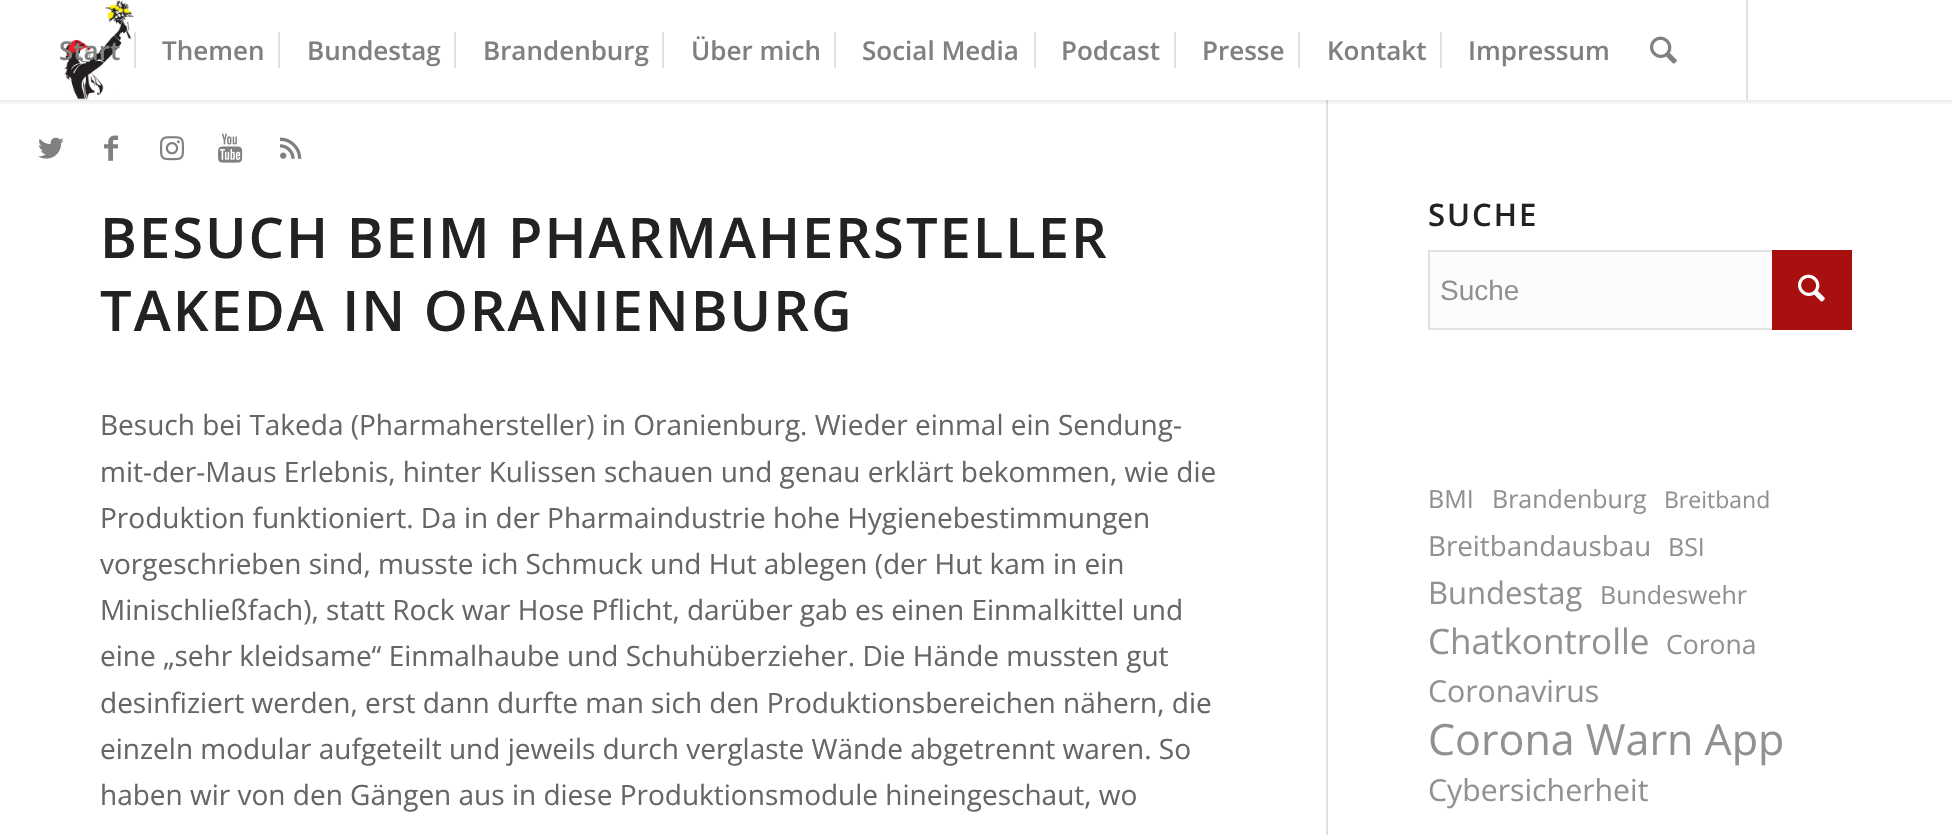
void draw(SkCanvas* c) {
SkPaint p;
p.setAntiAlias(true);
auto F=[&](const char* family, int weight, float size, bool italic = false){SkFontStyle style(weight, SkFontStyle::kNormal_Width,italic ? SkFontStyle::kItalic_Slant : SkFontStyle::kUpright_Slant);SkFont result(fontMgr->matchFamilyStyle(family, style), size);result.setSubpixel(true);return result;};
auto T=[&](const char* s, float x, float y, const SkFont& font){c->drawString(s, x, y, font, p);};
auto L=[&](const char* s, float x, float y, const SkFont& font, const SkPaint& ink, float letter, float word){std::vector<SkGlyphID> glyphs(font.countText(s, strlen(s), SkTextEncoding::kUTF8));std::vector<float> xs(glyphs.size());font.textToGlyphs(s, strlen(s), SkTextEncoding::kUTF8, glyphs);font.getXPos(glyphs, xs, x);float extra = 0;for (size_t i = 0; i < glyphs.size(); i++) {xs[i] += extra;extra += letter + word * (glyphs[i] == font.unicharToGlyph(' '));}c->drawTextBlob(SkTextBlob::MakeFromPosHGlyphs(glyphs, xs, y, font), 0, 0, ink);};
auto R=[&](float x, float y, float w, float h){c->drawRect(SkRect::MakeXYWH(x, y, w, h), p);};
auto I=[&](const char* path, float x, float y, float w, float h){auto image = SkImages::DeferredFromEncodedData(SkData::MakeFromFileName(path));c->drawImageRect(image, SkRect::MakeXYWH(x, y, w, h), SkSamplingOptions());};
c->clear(0xffffffff);
p.setColor(0xffe1e1e1);
R(1326,100,2,735);
c->save();
c->clipRect(SkRect::MakeXYWH(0,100,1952,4));
p.setColor(0x1a000000);
p.setMaskFilter(SkMaskFilter::MakeBlur(kNormal_SkBlurStyle, 2));
c->drawRect(SkRect::MakeXYWH(-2,-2,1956,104),p);
p.setMaskFilter(nullptr);
c->restore();
I("1.png",64,0,70,100);
p.setColor(0xffe1e1e1);
R(1746,0,2,100);
auto f1 = F("Open Sans",600,26);
p.setColor(0xff808080);
T("Start",59,60,f1);
T("Themen",162,60,f1);
p.setColor(0xffe1e1e1);
R(134,32,2,36);
p.setColor(0xff808080);
T("Bundestag",307,60,f1);
p.setColor(0xffe1e1e1);
R(278,32,2,36);
p.setColor(0xff808080);
T("Brandenburg",483,60,f1);
p.setColor(0xffe1e1e1);
R(454,32,2,36);
p.setColor(0xff808080);
T("Über mich",691,60,f1);
p.setColor(0xffe1e1e1);
R(662,32,2,36);
p.setColor(0xff808080);
T("Social Media",862,60,f1);
p.setColor(0xffe1e1e1);
R(834,32,2,36);
p.setColor(0xff808080);
T("Podcast",1061,60,f1);
p.setColor(0xffe1e1e1);
R(1034,32,2,36);
p.setColor(0xff808080);
T("Presse",1202,60,f1);
p.setColor(0xffe1e1e1);
R(1174,32,2,36);
p.setColor(0xff808080);
T("Kontakt",1327,60,f1);
p.setColor(0xffe1e1e1);
R(1298,32,2,36);
p.setColor(0xff808080);
T("Impressum",1468,60,f1);
p.setColor(0xffe1e1e1);
R(1440,32,2,36);
I("2.png",1650,36,27,28);
I("3.png",38,137,26,22);
I("4.png",104,135,14,26);
I("5.png",160,136,24,25);
I("6.png",218,133,25,30);
I("7.png",280,137,22,22);
auto f2 = F("Open Sans",600,56);
p.setColor(0xff222222);
L("BESUCH BEIM PHARMAHERSTELLER",100,258,f2,p,2,0);
L("TAKEDA IN ORANIENBURG",100,331,f2,p,2,0);
auto f3 = F("Open Sans",400,28);
p.setColor(0xff666666);
T("Besuch bei Takeda (Pharmahersteller) in Oranienburg. Wieder einmal ein Sendung-",100,435,f3);
T("mit-der-Maus Erlebnis, hinter Kulissen schauen und genau erklärt bekommen, wie die",100,482,f3);
T("Produktion funktioniert. Da in der Pharmaindustrie hohe Hygienebestimmungen",100,528,f3);
T("vorgeschrieben sind, musste ich Schmuck und Hut ablegen (der Hut kam in ein",100,574,f3);
T("Minischließfach), statt Rock war Hose Pflicht, darüber gab es einen Einmalkittel und",100,620,f3);
T("eine „sehr kleidsame“ Einmalhaube und Schuhüberzieher. Die Hände mussten gut",100,666,f3);
T("desinfiziert werden, erst dann durfte man sich den Produktionsbereichen nähern, die",100,713,f3);
T("einzeln modular aufgeteilt und jeweils durch verglaste Wände abgetrennt waren. So",100,759,f3);
T("haben wir von den Gängen aus in diese Produktionsmodule hineingeschaut, wo",100,805,f3);
auto f4 = F("Open Sans",600,31);
p.setColor(0xff222222);
L("SUCHE",1428,226,f4,p,2,0);
p.setColor(0xfffcfcfc);
R(1430,252,342,76);
p.setStroke(true);
p.setStrokeWidth(2);
p.setColor(0xffe1e1e1);
c->drawRect(SkRect::MakeXYWH(1429,251,422,78),p);
auto f5 = F("Liberation Sans",400,28);
p.setStroke(false);
p.setColor(0xff919191);
T("Suche",1440,300,f5);
p.setColor(0xffa81010);
R(1772,250,80,80);
I("8.png",1798,274,27,28);
auto f6 = F("Open Sans",400,25);
p.setColor(0xff919191);
T("BMI",1428,508,f6);
T("Brandenburg",1492,508,f6);
auto f7 = F("Open Sans",400,23);
T("Breitband",1664,508,f7);
auto f8 = F("Open Sans",400,27.75);
T("Breitbandausbau",1428,556,f8);
T("BSI",1668,556,f6);
auto f9 = F("Open Sans",400,31);
T("Bundestag",1428,604,f9);
T("Bundeswehr",1600,604,f6);
auto f10 = F("Open Sans",400,35);
T("Chatkontrolle",1428,654,f10);
auto f11 = F("Open Sans",400,26.5);
T("Corona",1666,654,f11);
auto f12 = F("Open Sans",400,30.25);
T("Coronavirus",1428,702,f12);
auto f13 = F("Open Sans",400,43);
T("Corona Warn App",1428,755,f13);
T("Cybersicherheit",1428,801,f12);
}
